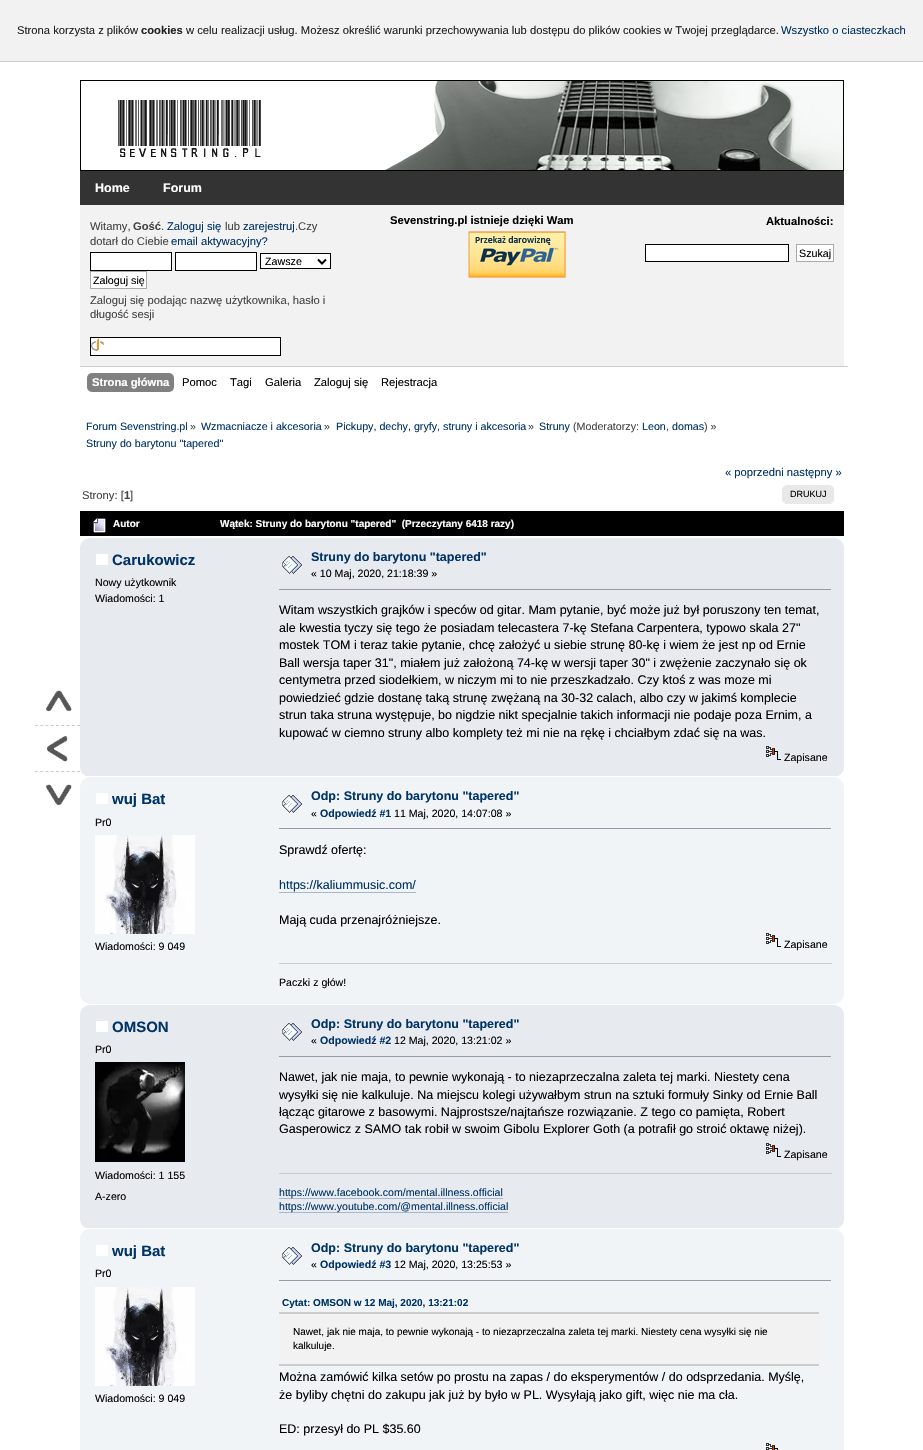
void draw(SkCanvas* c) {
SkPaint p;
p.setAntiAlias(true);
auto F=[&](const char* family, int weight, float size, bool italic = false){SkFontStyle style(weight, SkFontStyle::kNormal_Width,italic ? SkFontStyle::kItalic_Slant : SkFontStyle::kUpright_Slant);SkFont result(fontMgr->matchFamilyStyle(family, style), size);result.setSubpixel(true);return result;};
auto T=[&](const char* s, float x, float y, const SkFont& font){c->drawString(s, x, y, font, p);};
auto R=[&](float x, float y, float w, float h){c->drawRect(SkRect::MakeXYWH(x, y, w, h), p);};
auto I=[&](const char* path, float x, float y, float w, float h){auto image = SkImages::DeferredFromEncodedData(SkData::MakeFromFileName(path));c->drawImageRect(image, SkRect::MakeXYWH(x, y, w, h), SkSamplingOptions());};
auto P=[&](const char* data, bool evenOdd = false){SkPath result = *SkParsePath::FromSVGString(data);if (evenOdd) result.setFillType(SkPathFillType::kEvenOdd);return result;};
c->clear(0xffffffff);
p.setColor(0xfff2f2f2);
R(0,0,923,61);
p.setColor(0xffcccccc);
R(0,61,923,1);
auto f1 = F("Liberation Sans",400,11.23);
p.setColor(0xff222222);
T("Strona korzysta z plików",17,34,f1);
auto f2 = F("Liberation Sans",700,11.23);
T("cookies",141,34,f2);
T("w celu realizacji usług. Możesz określić warunki przechowywania lub dostępu do plików cookies w Twojej przeglądarce.",186,34,f1);
p.setColor(0xff003366);
T("Wszystko o ciasteczkach",781,34,f1);
I("1.png",385,81,458,89);
p.setStroke(true);
p.setStrokeWidth(1);
p.setColor(0xff000000);
c->drawRect(SkRect::MakeXYWH(80.5,80.5,763,90),p);
I("2.png",118,100,143,57);
p.setStroke(false);
p.setColor(0xff333333);
R(80,171,764,34);
auto f3 = F("Liberation Sans",700,12.5);
p.setColor(0xffffffff);
T("Home",95,192,f3);
T("Forum",163,192,f3);
p.setColor(0xfff2f2f2);
R(80,205,764,161);
p.setColor(0xff444444);
T("Witamy,",90,230,f1);
T("Gość",133,230,f2);
T(".",161,230,f1);
p.setColor(0xff003366);
T("Zaloguj się",167,230,f1);
p.setColor(0xff444444);
T("lub",225,230,f1);
p.setColor(0xff003366);
T("zarejestruj",243,230,f1);
p.setColor(0xff444444);
T(".Czy",295,230,f1);
T("dotarł do Ciebie",90,245,f1);
p.setColor(0xff003366);
T("email aktywacyjny?",171,245,f1);
p.setColor(0xffffffff);
c->drawRect(SkRect::MakeXYWH(90.5,252.5,81,18),p);
p.setStroke(true);
p.setColor(0xff000000);
c->drawRect(SkRect::MakeXYWH(90.5,252.5,81,18),p);
p.setStroke(false);
p.setColor(0xffffffff);
c->drawRect(SkRect::MakeXYWH(175.5,252.5,81,18),p);
p.setStroke(true);
p.setColor(0xff000000);
c->drawRect(SkRect::MakeXYWH(175.5,252.5,81,18),p);
p.setStroke(false);
p.setColor(0xffffffff);
c->drawRect(SkRect::MakeXYWH(260.5,253.5,70,15),p);
p.setStroke(true);
p.setColor(0xff000000);
c->drawRect(SkRect::MakeXYWH(260.5,253.5,70,15),p);
p.setStrokeWidth(2);
c->drawPath(P("M318 259.5l4 4l4-4"),p);
auto f4 = F("Liberation Sans",400,10.7);
p.setStroke(false);
T("Zawsze",265,265,f4);
p.setColor(0xffffffff);
c->drawRect(SkRect::MakeXYWH(90.5,271.5,56,17),p);
p.setStroke(true);
p.setStrokeWidth(1);
p.setColor(0xffaaaaaa);
c->drawRect(SkRect::MakeXYWH(90.5,271.5,56,17),p);
p.setStroke(false);
p.setColor(0xff000000);
T("Zaloguj się",93,284,f4);
p.setColor(0xff444444);
T("Zaloguj się podając nazwę użytkownika, hasło i",90,304,f1);
T("długość sesji",90,318,f1);
p.setColor(0xffffffff);
R(91,338,189,17);
I("3.png",91,338,13,13);
p.setStroke(true);
p.setColor(0xff000000);
c->drawRect(SkRect::MakeXYWH(90.5,337.5,190,18),p);
p.setStroke(false);
T("Sevenstring.pl istnieje dzięki Wam",390,224,f2);
I("4.png",468,231,98,47);
T("Aktualności:",766,225,f2);
p.setColor(0xffffffff);
c->drawRect(SkRect::MakeXYWH(645.5,244.5,143,17),p);
p.setStroke(true);
p.setColor(0xff000000);
c->drawRect(SkRect::MakeXYWH(645.5,244.5,143,17),p);
p.setStroke(false);
p.setColor(0xffffffff);
c->drawRect(SkRect::MakeXYWH(796.5,244.5,37,17),p);
p.setStroke(true);
p.setColor(0xffaaaaaa);
c->drawRect(SkRect::MakeXYWH(796.5,244.5,37,17),p);
p.setStroke(false);
p.setColor(0xff000000);
T("Szukaj",799,257,f4);
p.setColor(0xffcccccc);
R(80,366,768,1);
I("5.png",92,373,82,19);
I("6.png",87,373,5,19);
p.setColor(0xffffffff);
T("Strona główna",92,386,f2);
p.setColor(0xff000000);
T("Pomoc",182,386,f1);
T("Tagi",230,386,f1);
T("Galeria",265,386,f1);
T("Zaloguj się",314,386,f1);
T("Rejestracja",381,386,f1);
p.setColor(0xff003366);
T("Forum Sevenstring.pl",86,430,f4);
p.setColor(0xff444444);
T("»",190,430,f4);
p.setColor(0xff003366);
T("Wzmacniacze i akcesoria",201,430,f4);
p.setColor(0xff444444);
T("»",324,430,f4);
p.setColor(0xff003366);
T("Pickupy, dechy, gryfy, struny i akcesoria",336,430,f4);
p.setColor(0xff444444);
T("»",528,430,f4);
p.setColor(0xff003366);
T("Struny",539,430,f4);
p.setColor(0xff444444);
T("(Moderatorzy:",573,430,f4);
p.setColor(0xff003366);
T("Leon",642,430,f4);
p.setColor(0xff444444);
T(",",666,430,f4);
p.setColor(0xff003366);
T("domas",672,430,f4);
p.setColor(0xff444444);
T(") »",704,430,f4);
p.setColor(0xff003366);
T("Struny do barytonu \"tapered\"",86,447,f4);
T("« poprzedni następny »",725,476,f1);
p.setColor(0xff444444);
T("Strony: [",82,499,f1);
T("1",124,499,f2);
T("]",130,499,f1);
p.setColor(0xffe8e8e8);
R(786,485,44,19);
I("7.png",782,485,4,19);
I("8.png",830,485,4,19);
auto f5 = F("Liberation Sans",400,9);
p.setColor(0xff000000);
T("DRUKUJ",790,497,f5);
I("9.png",46,690,26,22);
p.setStroke(true);
p.setColor(0xffcccccc);
p.setPathEffect(SkDashPathEffect::Make({{3,2.25f}}, 0));
c->drawPath(P("M35 725.5h45"),p);
p.setPathEffect(nullptr);
I("10.png",46,735,22,27);
p.setPathEffect(SkDashPathEffect::Make({{3,2.25f}}, 0));
c->drawPath(P("M35 771.5h45"),p);
p.setPathEffect(nullptr);
I("11.png",45,784,27,22);
p.setStroke(false);
p.setColor(0xff000000);
R(80,511,764,25);
I("12.png",93,518,13,15);
auto f6 = F("Liberation Sans",700,10);
p.setColor(0xffffffff);
T("Autor",113,527,f6);
T("Wątek: Struny do barytonu \"tapered\"  (Przeczytany 6418 razy)",220,527,f6);
p.setColor(0xffe7eaef);
R(80,538,764,238);
I("13.png",80,538,9,9);
I("14.png",835,538,9,8);
p.setColor(0xffffffff);
R(96,554,12,11);
auto f7 = F("Liberation Sans",700,15);
p.setColor(0xff003366);
T("Carukowicz",112,565,f7);
auto f8 = F("Liberation Sans",400,10.6);
p.setColor(0xff000000);
T("Nowy użytkownik",95,586,f8);
T("Wiadomości: 1",95,602,f8);
I("15.png",282,556,20,18);
p.setColor(0xff003366);
T("Struny do barytonu \"tapered\"",311,561,f3);
p.setColor(0xff000000);
T("« 10 Maj, 2020, 21:18:39 »",311,577,f8);
p.setColor(0xff9999aa);
R(279,589,552,1);
auto f9 = F("Liberation Sans",400,12.5);
p.setColor(0xff000000);
T("Witam wszystkich grajków i speców od gitar. Mam pytanie, być może już był poruszony ten temat,",279,614,f9);
T("ale kwestia tyczy się tego że posiadam telecastera 7-kę Stefana Carpentera, typowo skala 27\"",279,632,f9);
T("mostek TOM i teraz takie pytanie, chcę założyć u siebie strunę 80-kę i wiem że jest np od Ernie",279,649,f9);
T("Ball wersja taper 31\", miałem już założoną 74-kę w wersji taper 30\" i zwężenie zaczynało się ok",279,667,f9);
T("centymetra przed siodełkiem, w niczym mi to nie przeszkadzało. Czy ktoś z was moze mi",279,684,f9);
T("powiedzieć gdzie dostanę taką strunę zwężaną na 30-32 calach, albo czy w jakimś komplecie",279,702,f9);
T("strun taka struna występuje, bo nigdzie nikt specjalnie takich informacji nie podaje poza Ernim, a",279,719,f9);
T("kupować w ciemno struny albo komplety też mi nie na rękę i chciałbym zdać się na was.",279,737,f9);
I("16.png",766,746,15,14);
T("Zapisane",784,761,f8);
I("17.png",80,768,6,8);
I("18.png",838,768,6,8);
p.setColor(0xfff0f4f7);
R(80,777,764,227);
I("19.png",80,777,8,8);
I("20.png",836,777,8,8);
p.setColor(0xffffffff);
R(96,793,12,11);
p.setColor(0xff003366);
T("wuj Bat",112,804,f7);
p.setColor(0xff000000);
T("Pr0",95,826,f8);
I("21.png",95,835,100,99);
T("Wiadomości: 9 049",95,950,f8);
I("22.png",282,795,20,18);
p.setColor(0xff003366);
T("Odp: Struny do barytonu \"tapered\"",311,800,f3);
p.setColor(0xff000000);
T("«",311,817,f8);
auto f10 = F("Liberation Sans",700,10.6);
p.setColor(0xff003366);
T("Odpowiedź #1",320,817,f10);
p.setColor(0xff000000);
T("11 Maj, 2020, 14:07:08 »",394,817,f8);
p.setColor(0xff9999aa);
R(279,828,552,1);
p.setColor(0xff000000);
T("Sprawdź ofertę:",279,854,f9);
p.setColor(0xff003366);
T("https://kaliummusic.com/",279,889,f9);
p.setColor(0xffa8b6cf);
R(279,892,137,1);
p.setColor(0xff000000);
T("Mają cuda przenajróżniejsze.",279,924,f9);
I("23.png",766,933,15,14);
T("Zapisane",784,948,f8);
p.setColor(0xffcccccc);
R(279,963,553,1);
p.setColor(0xff000000);
T("Paczki z głów!",279,986,f8);
I("24.png",80,996,8,8);
I("25.png",836,996,8,8);
p.setColor(0xffe7eaef);
R(80,1005,764,223);
I("13.png",80,1005,9,9);
I("14.png",835,1005,9,8);
p.setColor(0xffffffff);
R(96,1021,12,11);
p.setColor(0xff003366);
T("OMSON",112,1032,f7);
p.setColor(0xff000000);
T("Pr0",95,1053,f8);
I("26.png",95,1062,90,100);
T("Wiadomości: 1 155",95,1179,f8);
T("A-zero",95,1200,f8);
I("15.png",282,1023,20,18);
p.setColor(0xff003366);
T("Odp: Struny do barytonu \"tapered\"",311,1028,f3);
p.setColor(0xff000000);
T("«",311,1044,f8);
p.setColor(0xff003366);
T("Odpowiedź #2",320,1044,f10);
p.setColor(0xff000000);
T("12 Maj, 2020, 13:21:02 »",394,1044,f8);
p.setColor(0xff9999aa);
R(279,1056,552,1);
p.setColor(0xff000000);
T("Nawet, jak nie maja, to pewnie wykonają - to niezaprzeczalna zaleta tej marki. Niestety cena",279,1081,f9);
T("wysyłki się nie kalkuluje. Na miejscu kolegi używałbym strun na sztuki formuły Sinky od Ernie Ball",279,1099,f9);
T("łącząc gitarowe z basowymi. Najprostsze/najtańsze rozwiązanie. Z tego co pamięta, Robert",279,1116,f9);
T("Gasperowicz z SAMO tak robił w swoim Gibolu Explorer Goth (a potrafił go stroić oktawę niżej).",279,1133,f9);
I("16.png",766,1143,15,14);
T("Zapisane",784,1158,f8);
p.setColor(0xffcccccc);
R(279,1173,553,1);
p.setColor(0xffa8b6cf);
R(279,1198,224,1);
p.setColor(0xff003366);
T("https://www.facebook.com/mental.illness.official",279,1196,f8);
p.setColor(0xffa8b6cf);
R(279,1212,229,1);
p.setColor(0xff003366);
T("https://www.youtube.com/@mental.illness.official",279,1210,f8);
I("17.png",80,1220,6,8);
I("18.png",838,1220,6,8);
p.setColor(0xfff0f4f7);
R(80,1229,764,221);
I("19.png",80,1229,8,8);
I("20.png",836,1229,8,8);
p.setColor(0xffffffff);
R(96,1245,12,11);
p.setColor(0xff003366);
T("wuj Bat",112,1256,f7);
p.setColor(0xff000000);
T("Pr0",95,1277,f8);
I("21.png",95,1287,100,99);
T("Wiadomości: 9 049",95,1402,f8);
I("22.png",282,1247,20,18);
p.setColor(0xff003366);
T("Odp: Struny do barytonu \"tapered\"",311,1252,f3);
p.setColor(0xff000000);
T("«",311,1268,f8);
p.setColor(0xff003366);
T("Odpowiedź #3",320,1268,f10);
p.setColor(0xff000000);
T("12 Maj, 2020, 13:25:53 »",394,1268,f8);
p.setColor(0xff9999aa);
R(279,1280,552,1);
p.setColor(0xff003366);
T("Cytat: OMSON w 12 Maj, 2020, 13:21:02",282,1306,f6);
p.setColor(0xfff2f2f2);
R(279,1314,540,50);
p.setColor(0xffcccccc);
R(279,1312,540,2);
R(279,1364,540,2);
auto f11 = F("Liberation Sans",400,10);
p.setColor(0xff000000);
T("Nawet, jak nie maja, to pewnie wykonają - to niezaprzeczalna zaleta tej marki. Niestety cena wysyłki się nie",293,1335,f11);
T("kalkuluje.",293,1349,f11);
T("Można zamówić kilka setów po prostu na zapas / do eksperymentów / do odsprzedania. Myślę,",279,1381,f9);
T("że byliby chętni do zakupu jak już by było w PL. Wysyłają jako gift, więc nie ma cła.",279,1399,f9);
T("ED: przesył do PL $35.60",279,1433,f9);
I("27.png",766,1443,12,7);
}
